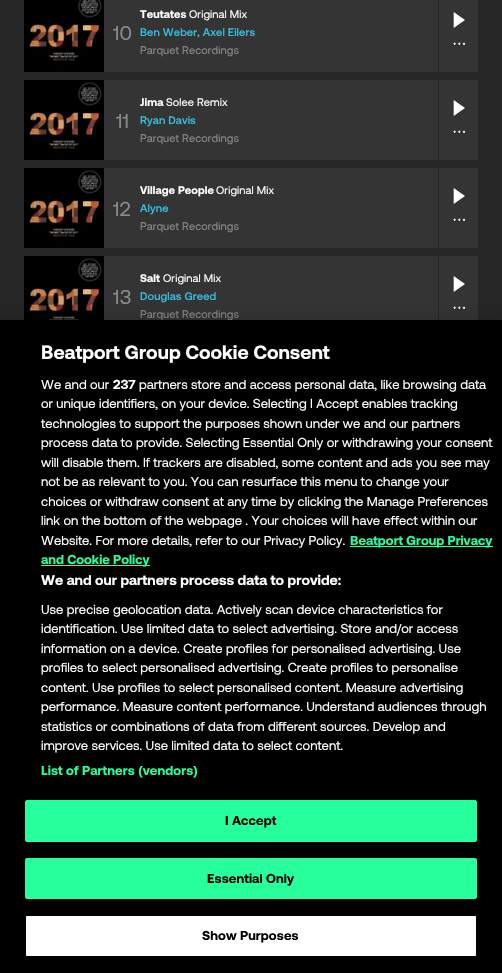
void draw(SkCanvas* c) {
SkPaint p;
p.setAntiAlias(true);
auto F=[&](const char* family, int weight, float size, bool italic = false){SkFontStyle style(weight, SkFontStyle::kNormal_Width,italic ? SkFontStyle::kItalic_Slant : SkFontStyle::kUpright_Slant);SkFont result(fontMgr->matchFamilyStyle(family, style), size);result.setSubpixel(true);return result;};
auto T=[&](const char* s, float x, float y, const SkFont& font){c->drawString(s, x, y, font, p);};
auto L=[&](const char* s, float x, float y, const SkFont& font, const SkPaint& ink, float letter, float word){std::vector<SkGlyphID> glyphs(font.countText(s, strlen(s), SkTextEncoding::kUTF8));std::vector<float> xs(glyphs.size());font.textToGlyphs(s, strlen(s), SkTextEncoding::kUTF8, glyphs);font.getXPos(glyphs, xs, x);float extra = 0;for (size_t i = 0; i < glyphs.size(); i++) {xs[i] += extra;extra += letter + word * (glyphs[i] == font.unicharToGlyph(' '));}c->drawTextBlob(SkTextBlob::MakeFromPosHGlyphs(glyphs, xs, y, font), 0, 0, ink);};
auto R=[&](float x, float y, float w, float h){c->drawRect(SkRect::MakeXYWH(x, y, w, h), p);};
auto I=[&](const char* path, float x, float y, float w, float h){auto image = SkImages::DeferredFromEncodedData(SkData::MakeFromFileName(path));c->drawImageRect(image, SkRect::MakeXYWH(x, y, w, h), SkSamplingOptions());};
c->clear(0xff262626);
p.setColor(0xff343434);
R(104,0,374,72);
I("1.png",24,0,80,72);
auto f1 = F("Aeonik",400,20);
p.setColor(0xff8c8c8c);
T("10",113,40,f1);
auto f2 = F("Aeonik",700,11);
p.setColor(0xffffffff);
L("Teutates",140,18,f2,p,.1,0);
auto f3 = F("Aeonik",400,11);
L("Original Mix",189,18,f3,p,.1,0);
auto f4 = F("Aeonik",500,11);
p.setColor(0xff39c0de);
L("Ben Weber, Axel Eilers",140,36,f4,p,.1,0);
p.setColor(0xff8c8c8c);
L("Parquet Recordings",140,54,f3,p,.1,0);
p.setColor(0xff262626);
R(438,0,1,72);
I("2.png",453,12,12,16);
I("3.png",453,42,13,3);
p.setColor(0xff343434);
R(104,80,374,80);
I("4.png",24,80,80,80);
p.setColor(0xff8c8c8c);
T("11",116,128,f1);
p.setColor(0xffffffff);
L("Jima",140,106,f2,p,.1,0);
L("Solee Remix",166,106,f3,p,.1,0);
p.setColor(0xff39c0de);
L("Ryan Davis",140,124,f4,p,.1,0);
p.setColor(0xff8c8c8c);
L("Parquet Recordings",140,142,f3,p,.1,0);
p.setColor(0xff262626);
R(438,80,1,80);
I("2.png",453,100,12,16);
I("3.png",453,130,13,3);
p.setColor(0xff343434);
R(104,168,374,80);
I("4.png",24,168,80,80);
p.setColor(0xff8c8c8c);
T("12",113,216,f1);
p.setColor(0xffffffff);
L("Village People",140,194,f2,p,.1,0);
L("Original Mix",216,194,f3,p,.1,0);
p.setColor(0xff39c0de);
L("Alyne",140,212,f4,p,.1,0);
p.setColor(0xff8c8c8c);
L("Parquet Recordings",140,230,f3,p,.1,0);
p.setColor(0xff262626);
R(438,168,1,80);
I("2.png",453,188,12,16);
I("3.png",453,218,13,3);
p.setColor(0xff343434);
R(104,256,374,64);
I("5.png",24,256,80,64);
p.setColor(0xff8c8c8c);
T("13",113,304,f1);
p.setColor(0xffffffff);
L("Salt",140,282,f2,p,.1,0);
L("Original Mix",163,282,f3,p,.1,0);
p.setColor(0xff39c0de);
L("Douglas Greed",140,300,f4,p,.1,0);
p.setColor(0xff8c8c8c);
L("Parquet Recordings",140,318,f3,p,.1,0);
p.setColor(0xff262626);
R(438,256,1,64);
I("2.png",453,276,12,16);
I("3.png",453,306,13,3);
p.setColor(0x33000000);
p.setMaskFilter(SkMaskFilter::MakeBlur(kNormal_SkBlurStyle, 9));
c->drawRect(SkRect::MakeXYWH(0,320,502,653),p);
p.setMaskFilter(nullptr);
p.setColor(0xff000000);
R(0,320,502,653);
auto f5 = F("Aeonik",700,19.25);
p.setColor(0xffffffff);
T("Beatport Group Cookie Consent",41,359,f5);
auto f6 = F("Aeonik",400,13);
T("We and our",41,389,f6);
auto f7 = F("Aeonik",700,13);
T("237",113,389,f7);
T("partners store and access personal data, like browsing data",139,389,f6);
T("or unique identifiers, on your device. Selecting I Accept enables tracking",41,408,f6);
T("technologies to support the purposes shown under we and our partners",41,428,f6);
T("process data to provide. Selecting Essential Only or withdrawing your consent",41,447,f6);
T("will disable them. If trackers are disabled, some content and ads you see may",41,467,f6);
T("not be as relevant to you. You can resurface this menu to change your",41,486,f6);
T("choices or withdraw consent at any time by clicking the Manage Preferences",41,506,f6);
T("link on the bottom of the webpage . Your choices will have effect within our",41,525,f6);
T("Website. For more details, refer to our Privacy Policy.",41,545,f6);
p.setColor(0xff27ff9c);
R(350,546,143,1);
T("Beatport Group Privacy",350,545,f7);
R(41,565,109,1);
T("and Cookie Policy",41,564,f7);
auto f8 = F("Aeonik",700,14.1);
p.setColor(0xffffffff);
T("We and our partners process data to provide:",41,585,f8);
T("Use precise geolocation data. Actively scan device characteristics for",41,614,f6);
T("identification. Use limited data to select advertising. Store and/or access",41,633,f6);
T("information on a device. Create profiles for personalised advertising. Use",41,653,f6);
T("profiles to select personalised advertising. Create profiles to personalise",41,672,f6);
T("content. Use profiles to select personalised content. Measure advertising",41,692,f6);
T("performance. Measure content performance. Understand audiences through",41,711,f6);
T("statistics or combinations of data from different sources. Develop and",41,731,f6);
T("improve services. Use limited data to select content.",41,750,f6);
p.setColor(0xff27ff9c);
L("List of Partners (vendors)",41,775,f7,p,.1,0);
c->drawRoundRect(SkRect::MakeXYWH(25.5,800.5,451,41),1.5,1.5,p);
p.setStroke(true);
p.setStrokeWidth(1);
c->drawRoundRect(SkRect::MakeXYWH(25.5,800.5,451,41),1.5,1.5,p);
p.setStroke(false);
p.setColor(0xff000000);
L("I Accept",225,825,f7,p,.1,0);
p.setColor(0xff27ff9c);
c->drawRoundRect(SkRect::MakeXYWH(25.5,858.5,451,40),1.5,1.5,p);
p.setStroke(true);
c->drawRoundRect(SkRect::MakeXYWH(25.5,858.5,451,40),1.5,1.5,p);
p.setStroke(false);
p.setColor(0xff000000);
L("Essential Only",207,883,f7,p,.1,0);
p.setColor(0xffffffff);
c->drawRoundRect(SkRect::MakeXYWH(25.5,915.5,451,41),1.5,1.5,p);
p.setStroke(true);
p.setColor(0xff000000);
c->drawRoundRect(SkRect::MakeXYWH(25.5,915.5,451,41),1.5,1.5,p);
p.setStroke(false);
L("Show Purposes",202,940,f7,p,.1,0);
}
